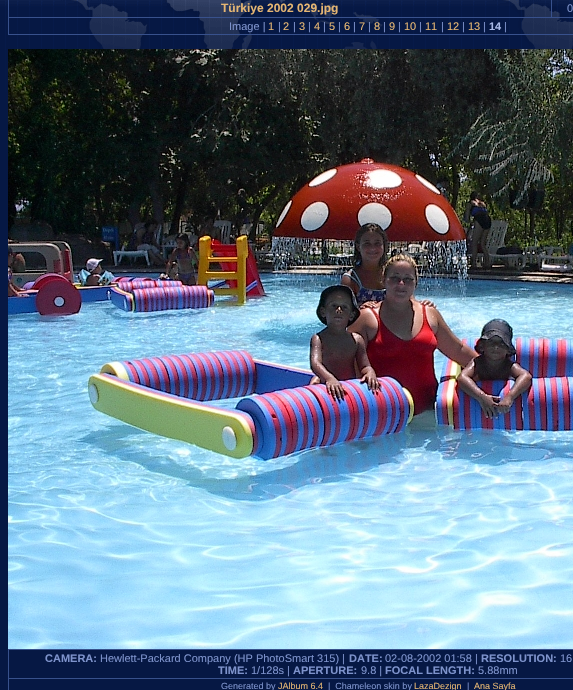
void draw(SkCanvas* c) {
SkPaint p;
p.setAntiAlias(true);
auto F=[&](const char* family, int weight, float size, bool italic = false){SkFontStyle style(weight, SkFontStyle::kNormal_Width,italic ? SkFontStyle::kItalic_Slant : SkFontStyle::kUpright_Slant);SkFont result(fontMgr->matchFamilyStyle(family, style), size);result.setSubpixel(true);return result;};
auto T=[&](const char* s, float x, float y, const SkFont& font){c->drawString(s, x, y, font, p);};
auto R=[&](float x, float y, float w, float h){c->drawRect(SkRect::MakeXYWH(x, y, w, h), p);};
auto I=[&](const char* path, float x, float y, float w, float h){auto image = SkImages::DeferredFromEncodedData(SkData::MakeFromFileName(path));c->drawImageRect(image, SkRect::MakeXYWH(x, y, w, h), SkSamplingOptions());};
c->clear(0xff061844);
I("1.png",0,0,573,100);
p.setColor(0xff38518c);
R(8,34,565,1);
R(8,0,1,35);
auto f1 = F("Liberation Sans",700,12);
p.setColor(0xffe5b673);
T("Türkiye 2002 029.jpg",221,12,f1);
p.setColor(0xff38518c);
R(8,17,565,1);
R(551,0,1,18);
auto f2 = F("Liberation Sans",400,11);
p.setColor(0xff7e93cc);
T("0",567,12,f2);
T("Image |",229,30,f2);
p.setColor(0xffe5b673);
T("1",268,30,f2);
p.setColor(0xff7e93cc);
T("|",278,30,f2);
p.setColor(0xffe5b673);
T("2",283,30,f2);
p.setColor(0xff7e93cc);
T("|",293,30,f2);
p.setColor(0xffe5b673);
T("3",299,30,f2);
p.setColor(0xff7e93cc);
T("|",308,30,f2);
p.setColor(0xffe5b673);
T("4",314,30,f2);
p.setColor(0xff7e93cc);
T("|",323,30,f2);
p.setColor(0xffe5b673);
T("5",329,30,f2);
p.setColor(0xff7e93cc);
T("|",338,30,f2);
p.setColor(0xffe5b673);
T("6",344,30,f2);
p.setColor(0xff7e93cc);
T("|",353,30,f2);
p.setColor(0xffe5b673);
T("7",359,30,f2);
p.setColor(0xff7e93cc);
T("|",368,30,f2);
p.setColor(0xffe5b673);
T("8",374,30,f2);
p.setColor(0xff7e93cc);
T("|",383,30,f2);
p.setColor(0xffe5b673);
T("9",389,30,f2);
p.setColor(0xff7e93cc);
T("|",398,30,f2);
p.setColor(0xffe5b673);
T("10",404,30,f2);
p.setColor(0xff7e93cc);
T("|",419,30,f2);
p.setColor(0xffe5b673);
T("11",425,30,f2);
p.setColor(0xff7e93cc);
T("|",441,30,f2);
p.setColor(0xffe5b673);
T("12",447,30,f2);
p.setColor(0xff7e93cc);
T("|",462,30,f2);
p.setColor(0xffe5b673);
T("13",468,30,f2);
p.setColor(0xff7e93cc);
T("|",483,30,f2);
auto f3 = F("Liberation Sans",700,11);
p.setColor(0xffa9bae7);
T("14",489,30,f3);
p.setColor(0xff7e93cc);
T("|",504,30,f2);
I("2.png",8,49,565,600);
p.setColor(0xff38518c);
R(8,649,565,1);
R(8,649,1,41);
p.setColor(0xff7e93cc);
T("CAMERA:",45,662,f3);
T("Hewlett-Packard Company (HP PhotoSmart 315) |",100,662,f2);
T("DATE:",349,662,f3);
T("02-08-2002 01:58 |",385,662,f2);
T("RESOLUTION:",481,662,f3);
T("16",560,662,f2);
T("TIME:",218,674,f3);
T("1/128s |",251,674,f2);
T("APERTURE:",293,674,f3);
T("9.8 |",361,674,f2);
T("FOCAL LENGTH:",385,674,f3);
T("5.88mm",478,674,f2);
p.setColor(0xff38518c);
R(8,678,565,1);
auto f4 = F("Liberation Sans",400,9);
p.setColor(0xff7e93cc);
T("Generated by",221,689,f4);
p.setColor(0xffe5b673);
T("JAlbum 6.4",278,689,f4);
p.setColor(0xff7e93cc);
T("|  Chameleon skin by",328,689,f4);
p.setColor(0xffe5b673);
T("LazaDezign",414,689,f4);
p.setColor(0xff7e93cc);
T("|",467,689,f4);
p.setColor(0xffe5b673);
T("Ana Sayfa",474,689,f4);
}
